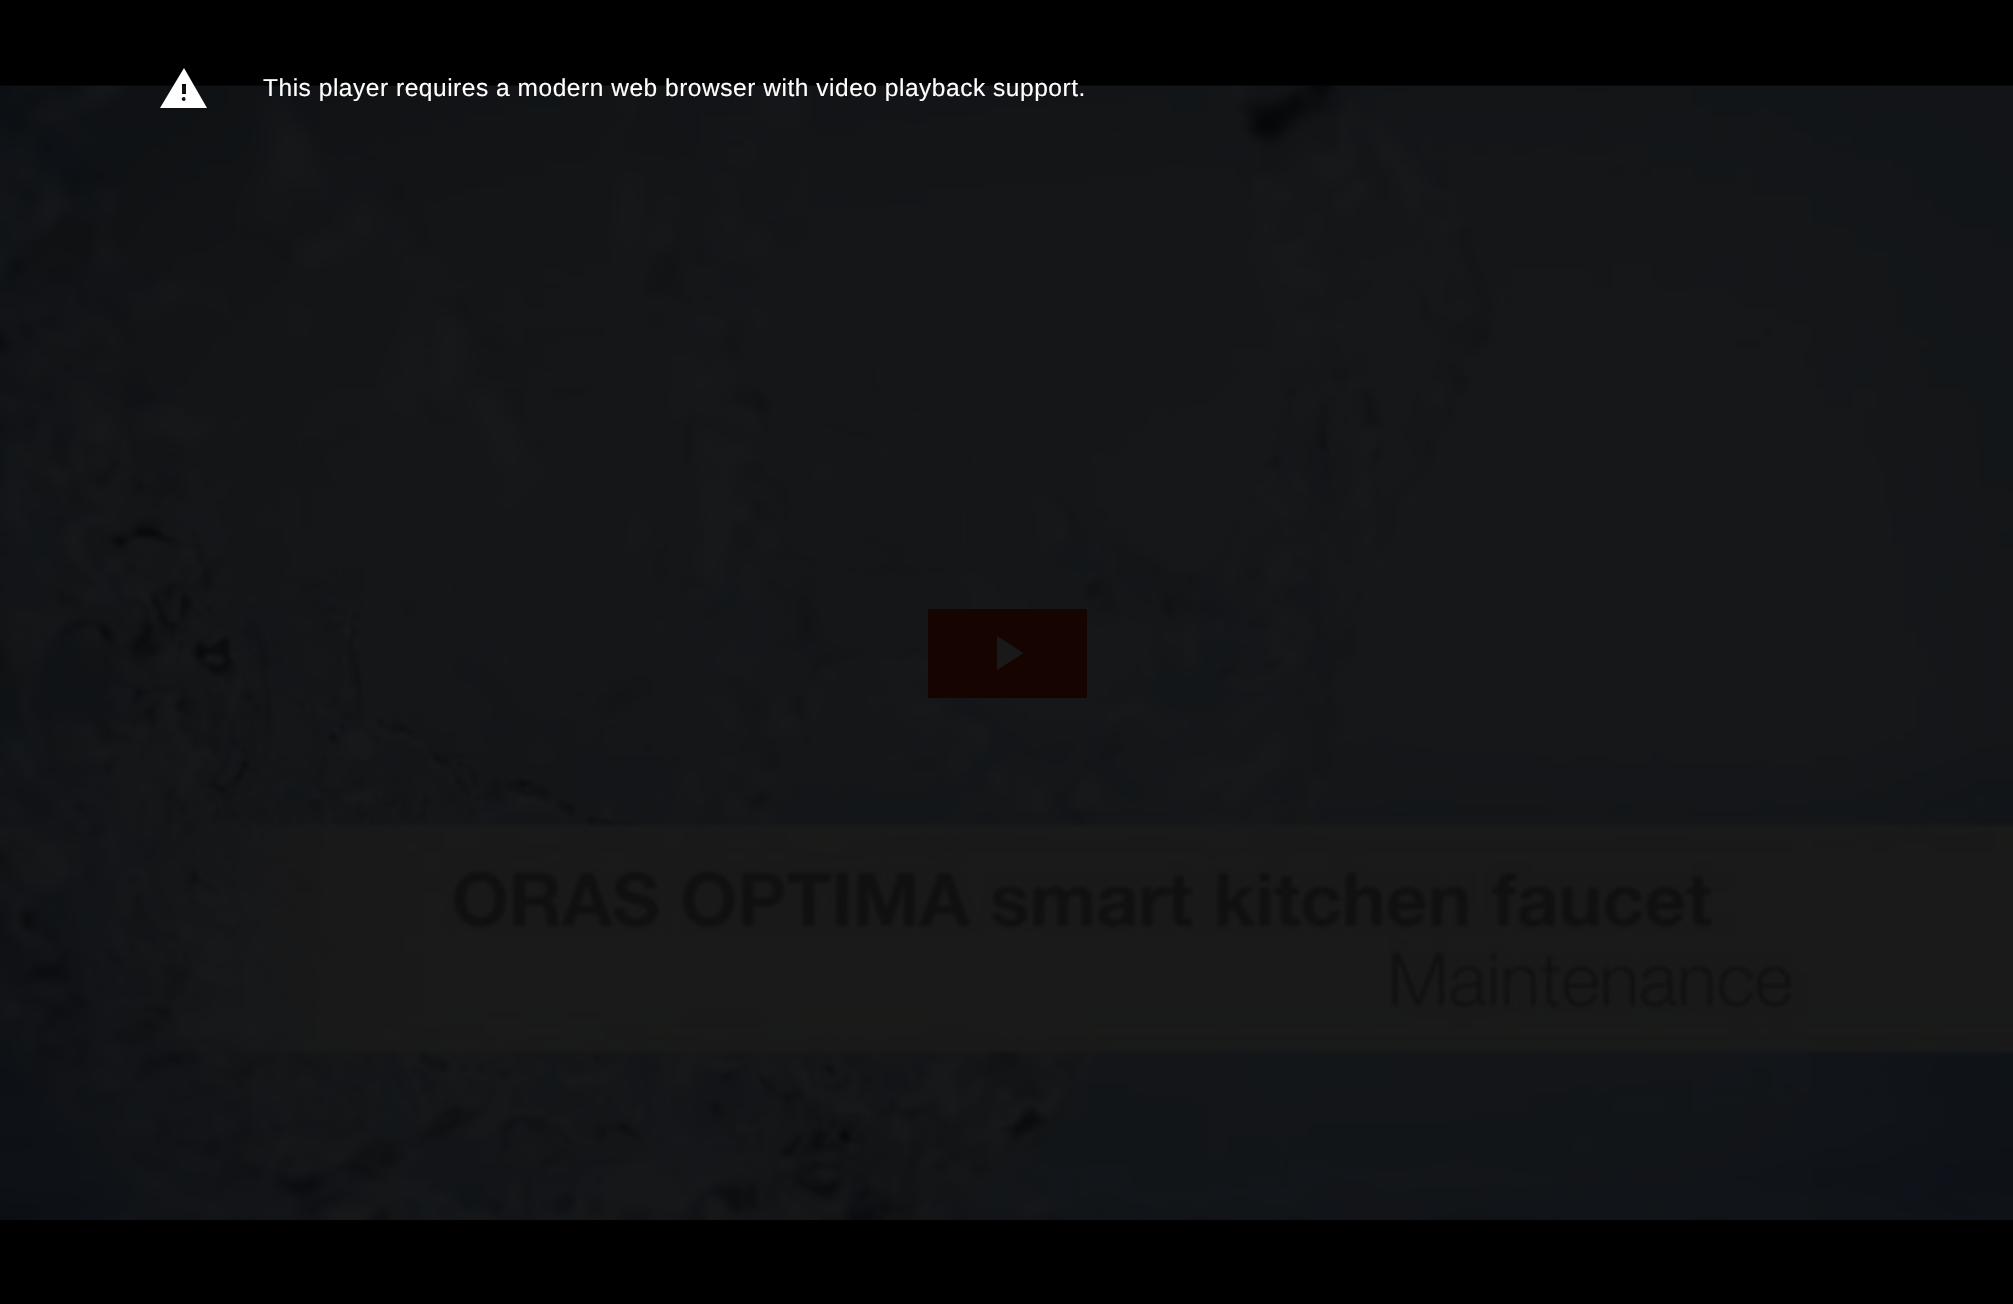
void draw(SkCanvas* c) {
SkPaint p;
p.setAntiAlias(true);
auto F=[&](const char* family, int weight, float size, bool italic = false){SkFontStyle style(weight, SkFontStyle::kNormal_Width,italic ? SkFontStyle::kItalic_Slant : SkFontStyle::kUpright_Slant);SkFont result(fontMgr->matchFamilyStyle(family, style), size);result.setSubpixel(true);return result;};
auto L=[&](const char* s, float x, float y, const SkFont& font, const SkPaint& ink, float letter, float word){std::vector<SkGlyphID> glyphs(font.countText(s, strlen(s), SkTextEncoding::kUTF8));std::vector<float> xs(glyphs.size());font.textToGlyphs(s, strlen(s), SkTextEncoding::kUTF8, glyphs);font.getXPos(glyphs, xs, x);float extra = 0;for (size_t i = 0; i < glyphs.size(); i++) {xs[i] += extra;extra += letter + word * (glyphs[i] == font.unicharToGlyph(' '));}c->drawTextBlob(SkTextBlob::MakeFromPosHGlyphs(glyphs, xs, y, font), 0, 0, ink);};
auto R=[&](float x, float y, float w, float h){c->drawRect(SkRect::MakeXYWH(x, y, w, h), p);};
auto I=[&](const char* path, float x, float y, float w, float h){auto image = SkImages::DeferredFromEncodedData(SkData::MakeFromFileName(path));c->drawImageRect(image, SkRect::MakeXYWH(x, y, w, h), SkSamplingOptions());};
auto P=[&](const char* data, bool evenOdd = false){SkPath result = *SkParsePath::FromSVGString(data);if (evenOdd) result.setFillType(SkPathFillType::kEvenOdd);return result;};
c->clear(0xff000000);
I("1.png",0,85,2013,1135);
I("2.png",0,85,2013,1135);
p.setColor(0xffffffff);
c->drawPath(P("M160 108l24-40l23 40zm24-7c2 0 2-4 0-4c-3 0-3 4 0 4zm-2-7h4v-10h-4z"),p);
auto f1 = F("Liberation Sans",400,24.5);
L("This player requires a modern web browser with video playback support.",263,96,f1,p,.53,0);
p.setColor(0xff160400);
R(928,609,159,89);
p.setColor(0xff191919);
c->drawPath(P("M997 636v34l26.5-17z"),p);
}
